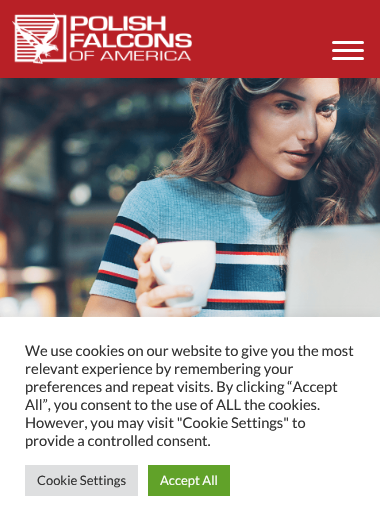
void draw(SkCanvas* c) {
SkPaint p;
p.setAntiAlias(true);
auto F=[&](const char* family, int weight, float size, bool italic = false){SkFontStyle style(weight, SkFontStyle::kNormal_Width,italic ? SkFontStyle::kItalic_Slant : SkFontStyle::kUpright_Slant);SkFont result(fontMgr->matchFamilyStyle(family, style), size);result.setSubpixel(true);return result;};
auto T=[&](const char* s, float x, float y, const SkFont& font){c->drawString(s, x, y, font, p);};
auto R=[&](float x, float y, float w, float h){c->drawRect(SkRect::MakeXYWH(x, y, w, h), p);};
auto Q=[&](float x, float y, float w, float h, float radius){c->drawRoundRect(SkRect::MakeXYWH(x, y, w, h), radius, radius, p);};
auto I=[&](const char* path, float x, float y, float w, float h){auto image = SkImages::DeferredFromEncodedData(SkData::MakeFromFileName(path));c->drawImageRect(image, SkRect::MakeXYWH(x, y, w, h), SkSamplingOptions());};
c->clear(0xffb82026);
I("1.png",12,13,180,51);
p.setColor(0xffffffff);
Q(332,41,32,3,1.5);
Q(332,49,32,3,1.5);
Q(332,57,32,3,1.5);
I("2.png",0,78,380,239);
p.setColor(0x4dacabab);
p.setMaskFilter(SkMaskFilter::MakeBlur(kNormal_SkBlurStyle, 5));
c->drawRect(SkRect::MakeXYWH(0,316,380,209),p);
p.setMaskFilter(nullptr);
p.setColor(0xffffffff);
R(0,317,380,209);
auto f1 = F("Lato",400,14.7);
p.setColor(0xff333333);
T("We use cookies on our website to give you the most",25,356,f1);
T("relevant experience by remembering your",25,374,f1);
T("preferences and repeat visits. By clicking “Accept",25,392,f1);
T("All”, you consent to the use of ALL the cookies.",25,410,f1);
T("However, you may visit \"Cookie Settings\" to",25,428,f1);
T("provide a controlled consent.",25,446,f1);
p.setColor(0xffdedfe0);
R(25,465,113,31);
auto f2 = F("Lato",400,13);
p.setColor(0xff333333);
T("Cookie Settings",37,485,f2);
p.setColor(0xff61a229);
R(148,465,82,31);
p.setColor(0xffffffff);
T("Accept All",160,485,f2);
}
